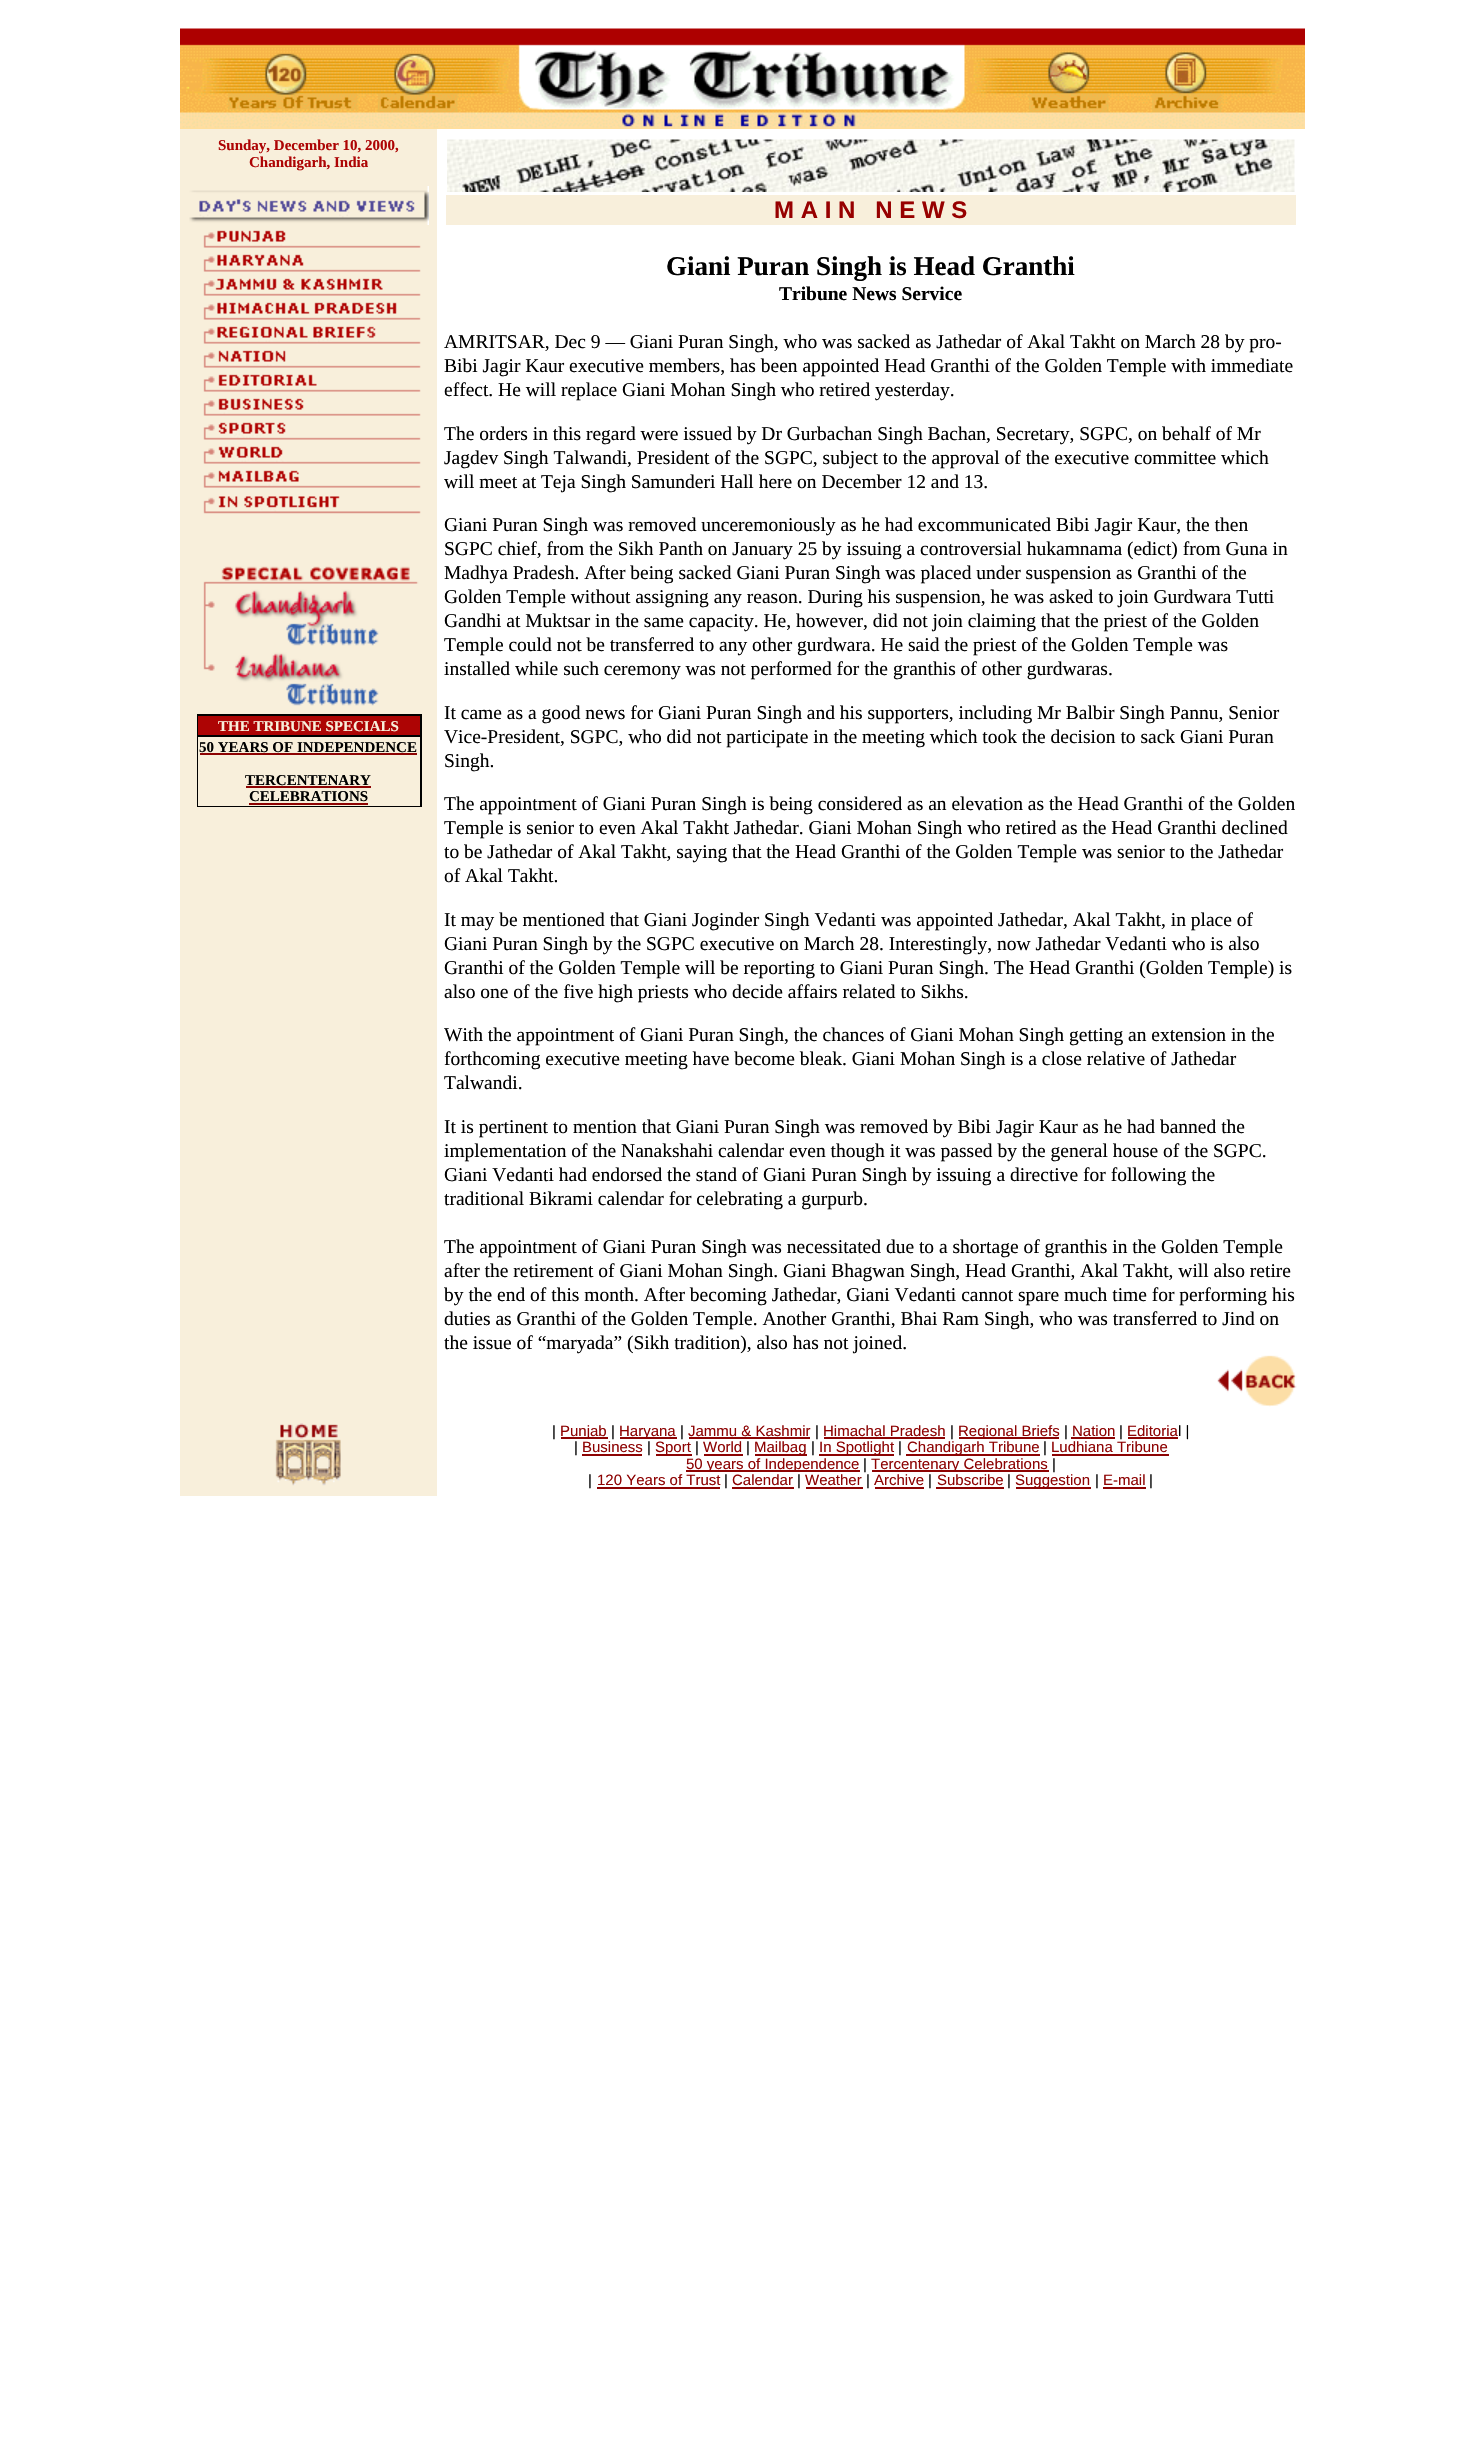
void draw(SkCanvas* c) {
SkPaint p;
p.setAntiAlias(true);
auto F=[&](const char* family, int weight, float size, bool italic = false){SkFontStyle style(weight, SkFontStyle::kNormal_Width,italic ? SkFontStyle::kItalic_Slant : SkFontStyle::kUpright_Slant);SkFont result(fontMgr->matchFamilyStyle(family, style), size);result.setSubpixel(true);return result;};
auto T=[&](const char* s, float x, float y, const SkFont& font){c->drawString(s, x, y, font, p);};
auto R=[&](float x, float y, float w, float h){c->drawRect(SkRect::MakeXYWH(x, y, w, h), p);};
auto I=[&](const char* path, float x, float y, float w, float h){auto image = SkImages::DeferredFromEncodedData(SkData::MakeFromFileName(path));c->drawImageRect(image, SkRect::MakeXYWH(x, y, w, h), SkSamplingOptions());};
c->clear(0xffffffff);
I("1.png",180,28,1125,101);
p.setColor(0xfff8efdb);
R(180,129,257,1367);
auto f1 = F("Liberation Serif",700,15);
p.setColor(0xffad0404);
T("Sunday, December 10, 2000,",218,150,f1);
T("Chandigarh, India",249,167,f1);
I("2.png",189,186,240,39);
I("3.png",203,230,218,284);
I("4.png",203,566,216,140);
p.setColor(0xff000000);
R(197,714,225,93);
p.setColor(0xffad0404);
R(198,716,222,19);
p.setColor(0xfff8efdb);
T("THE TRIBUNE SPECIALS",218,731,f1);
R(198,737,222,69);
p.setColor(0xff000000);
T("50 YEARS OF INDEPENDENCE",199,752,f1);
p.setColor(0xff8d0303);
R(200,753,217,2);
p.setColor(0xff000000);
T("TERCENTENARY",245,785,f1);
p.setColor(0xff8d0303);
R(246,786,125,2);
p.setColor(0xff000000);
T("CELEBRATIONS",249,801,f1);
p.setColor(0xff8d0303);
R(249,803,119,2);
I("5.png",447,139,848,53);
p.setColor(0xfff8efdb);
R(446,195,850,30);
auto f2 = F("Liberation Sans",700,24);
p.setColor(0xff970000);
T("M A I N   N E W S",774,218,f2);
auto f3 = F("Liberation Serif",700,27);
p.setColor(0xff000000);
T("Giani Puran Singh is Head Granthi",666,275,f3);
auto f4 = F("Liberation Serif",700,19.5);
T("Tribune News Service",779,300,f4);
auto f5 = F("Liberation Serif",400,19.5);
T("AMRITSAR, Dec 9 — Giani Puran Singh, who was sacked as Jathedar of Akal Takht on March 28 by pro-",444,348,f5);
T("Bibi Jagir Kaur executive members, has been appointed Head Granthi of the Golden Temple with immediate",444,372,f5);
T("effect. He will replace Giani Mohan Singh who retired yesterday.",444,396,f5);
T("The orders in this regard were issued by Dr Gurbachan Singh Bachan, Secretary, SGPC, on behalf of Mr",444,440,f5);
T("Jagdev Singh Talwandi, President of the SGPC, subject to the approval of the executive committee which",444,464,f5);
T("will meet at Teja Singh Samunderi Hall here on December 12 and 13.",444,488,f5);
T("Giani Puran Singh was removed unceremoniously as he had excommunicated Bibi Jagir Kaur, the then",444,531,f5);
T("SGPC chief, from the Sikh Panth on January 25 by issuing a controversial hukamnama (edict) from Guna in",444,555,f5);
T("Madhya Pradesh. After being sacked Giani Puran Singh was placed under suspension as Granthi of the",444,579,f5);
T("Golden Temple without assigning any reason. During his suspension, he was asked to join Gurdwara Tutti",444,603,f5);
T("Gandhi at Muktsar in the same capacity. He, however, did not join claiming that the priest of the Golden",444,627,f5);
T("Temple could not be transferred to any other gurdwara. He said the priest of the Golden Temple was",444,651,f5);
T("installed while such ceremony was not performed for the granthis of other gurdwaras.",444,675,f5);
T("It came as a good news for Giani Puran Singh and his supporters, including Mr Balbir Singh Pannu, Senior",444,719,f5);
T("Vice-President, SGPC, who did not participate in the meeting which took the decision to sack Giani Puran",444,743,f5);
T("Singh.",444,767,f5);
T("The appointment of Giani Puran Singh is being considered as an elevation as the Head Granthi of the Golden",444,810,f5);
T("Temple is senior to even Akal Takht Jathedar. Giani Mohan Singh who retired as the Head Granthi declined",444,834,f5);
T("to be Jathedar of Akal Takht, saying that the Head Granthi of the Golden Temple was senior to the Jathedar",444,858,f5);
T("of Akal Takht.",444,882,f5);
T("It may be mentioned that Giani Joginder Singh Vedanti was appointed Jathedar, Akal Takht, in place of",444,926,f5);
T("Giani Puran Singh by the SGPC executive on March 28. Interestingly, now Jathedar Vedanti who is also",444,950,f5);
T("Granthi of the Golden Temple will be reporting to Giani Puran Singh. The Head Granthi (Golden Temple) is",444,974,f5);
T("also one of the five high priests who decide affairs related to Sikhs.",444,998,f5);
T("With the appointment of Giani Puran Singh, the chances of Giani Mohan Singh getting an extension in the",444,1041,f5);
T("forthcoming executive meeting have become bleak. Giani Mohan Singh is a close relative of Jathedar",444,1065,f5);
T("Talwandi.",444,1089,f5);
T("It is pertinent to mention that Giani Puran Singh was removed by Bibi Jagir Kaur as he had banned the",444,1133,f5);
T("implementation of the Nanakshahi calendar even though it was passed by the general house of the SGPC.",444,1157,f5);
T("Giani Vedanti had endorsed the stand of Giani Puran Singh by issuing a directive for following the",444,1181,f5);
T("traditional Bikrami calendar for celebrating a gurpurb.",444,1205,f5);
T("The appointment of Giani Puran Singh was necessitated due to a shortage of granthis in the Golden Temple",444,1253,f5);
T("after the retirement of Giani Mohan Singh. Giani Bhagwan Singh, Head Granthi, Akal Takht, will also retire",444,1277,f5);
T("by the end of this month. After becoming Jathedar, Giani Vedanti cannot spare much time for performing his",444,1301,f5);
T("duties as Granthi of the Golden Temple. Another Granthi, Bhai Ram Singh, who was transferred to Jind on",444,1325,f5);
T("the issue of “maryada” (Sikh tradition), also has not joined.",444,1349,f5);
I("6.png",1217,1355,80,52);
I("7.png",275,1423,66,63);
auto f6 = F("Liberation Sans",400,15);
T("|",552,1436,f6);
p.setColor(0xff8d0303);
R(561,1437,47,2);
T("Punjab",560,1436,f6);
p.setColor(0xff000000);
T("|",611,1436,f6);
p.setColor(0xff8d0303);
R(620,1437,57,2);
T("Haryana",619,1436,f6);
p.setColor(0xff000000);
T("|",680,1436,f6);
p.setColor(0xff8d0303);
T("Jammu & Kashmir",688,1436,f6);
R(689,1437,121,2);
p.setColor(0xff000000);
T("|",815,1436,f6);
p.setColor(0xff8d0303);
T("Himachal Pradesh",823,1436,f6);
R(824,1437,121,2);
p.setColor(0xff000000);
T("|",950,1436,f6);
p.setColor(0xff8d0303);
R(959,1437,100,2);
T("Regional Briefs",958,1436,f6);
p.setColor(0xff000000);
T("|",1064,1436,f6);
p.setColor(0xff8d0303);
T("Nation",1072,1436,f6);
R(1071,1437,44,2);
p.setColor(0xff000000);
T("|",1119,1436,f6);
p.setColor(0xff8d0303);
T("Editoria",1127,1436,f6);
R(1128,1437,50,2);
p.setColor(0xff000000);
T("l |",1178,1436,f6);
T("|",574,1452,f6);
p.setColor(0xff8d0303);
T("Business",582,1452,f6);
R(582,1454,60,2);
p.setColor(0xff000000);
T("|",647,1452,f6);
p.setColor(0xff8d0303);
R(656,1454,36,2);
T("Sport",655,1452,f6);
p.setColor(0xff000000);
T("|",695,1452,f6);
p.setColor(0xff8d0303);
T("World",703,1452,f6);
R(704,1454,39,2);
p.setColor(0xff000000);
T("|",746,1452,f6);
p.setColor(0xff8d0303);
R(755,1454,52,2);
T("Mailbag",754,1452,f6);
p.setColor(0xff000000);
T("|",811,1452,f6);
p.setColor(0xff8d0303);
R(819,1454,75,2);
T("In Spotlight",819,1452,f6);
p.setColor(0xff000000);
T("|",898,1452,f6);
p.setColor(0xff8d0303);
R(906,1454,134,2);
T("Chandigarh Tribune",907,1452,f6);
p.setColor(0xff000000);
T("|",1043,1452,f6);
p.setColor(0xff8d0303);
T("Ludhiana Tribune",1051,1452,f6);
R(1052,1454,117,2);
R(686,1470,174,2);
T("50 years of Independence",686,1469,f6);
p.setColor(0xff000000);
T("|",863,1469,f6);
p.setColor(0xff8d0303);
R(872,1470,177,2);
T("Tercentenary Celebrations",871,1469,f6);
p.setColor(0xff000000);
T("|",1052,1469,f6);
T("|",588,1485,f6);
p.setColor(0xff8d0303);
T("120 Years of Trust",597,1485,f6);
R(597,1487,123,2);
p.setColor(0xff000000);
T("|",724,1485,f6);
p.setColor(0xff8d0303);
T("Calendar",732,1485,f6);
R(732,1487,62,2);
p.setColor(0xff000000);
T("|",797,1485,f6);
p.setColor(0xff8d0303);
T("Weather",805,1485,f6);
R(806,1487,57,2);
p.setColor(0xff000000);
T("|",866,1485,f6);
p.setColor(0xff8d0303);
T("Archive",874,1485,f6);
R(875,1487,49,2);
p.setColor(0xff000000);
T("|",928,1485,f6);
p.setColor(0xff8d0303);
T("Subscribe",937,1485,f6);
R(936,1487,68,2);
p.setColor(0xff000000);
T("|",1007,1485,f6);
p.setColor(0xff8d0303);
R(1016,1487,75,2);
T("Suggestion",1015,1485,f6);
p.setColor(0xff000000);
T("|",1095,1485,f6);
p.setColor(0xff8d0303);
T("E-mail",1103,1485,f6);
R(1103,1487,43,2);
p.setColor(0xff000000);
T("|",1149,1485,f6);
}
